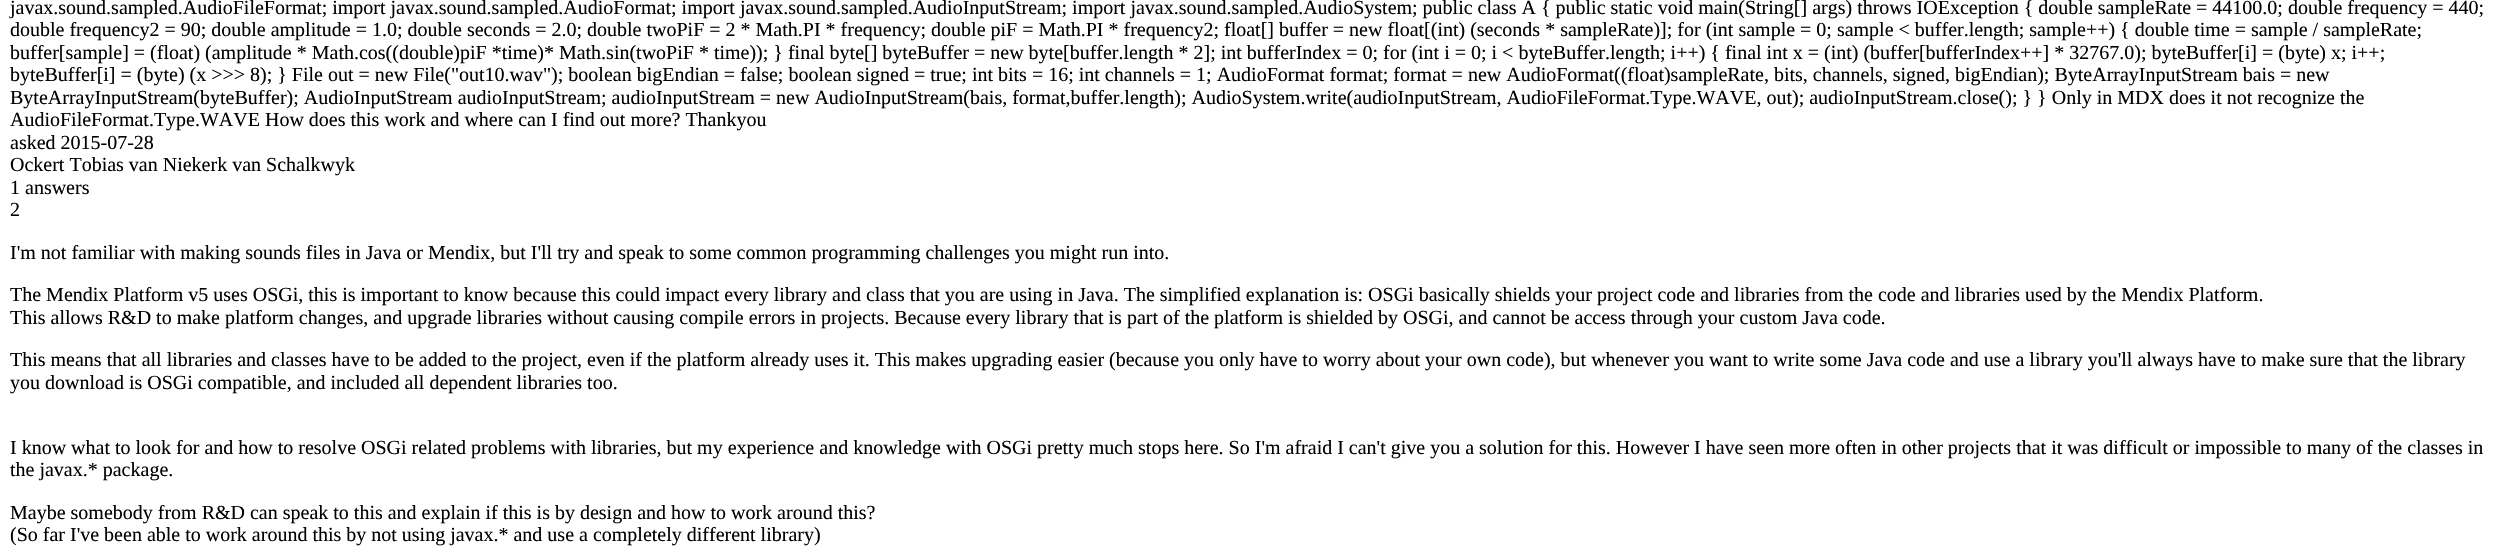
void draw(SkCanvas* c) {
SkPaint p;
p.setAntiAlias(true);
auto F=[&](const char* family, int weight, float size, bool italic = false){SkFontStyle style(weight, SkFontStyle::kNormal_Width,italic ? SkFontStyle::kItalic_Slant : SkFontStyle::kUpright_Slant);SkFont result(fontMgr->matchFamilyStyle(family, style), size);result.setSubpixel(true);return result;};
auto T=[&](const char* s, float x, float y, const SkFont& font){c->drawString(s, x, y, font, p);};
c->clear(0xffffffff);
auto f1 = F("Liberation Serif",400,20);
p.setColor(0xff000000);
T("javax.sound.sampled.AudioFileFormat; import javax.sound.sampled.AudioFormat; import javax.sound.sampled.AudioInputStream; import javax.sound.sampled.AudioSystem; public class A { public static void main(String[] args) throws IOException { double sampleRate = 44100.0; double frequency = 440;",10,14,f1);
T("double frequency2 = 90; double amplitude = 1.0; double seconds = 2.0; double twoPiF = 2 * Math.PI * frequency; double piF = Math.PI * frequency2; float[] buffer = new float[(int) (seconds * sampleRate)]; for (int sample = 0; sample < buffer.length; sample++) { double time = sample / sampleRate;",10,36,f1);
T("buffer[sample] = (float) (amplitude * Math.cos((double)piF *time)* Math.sin(twoPiF * time)); } final byte[] byteBuffer = new byte[buffer.length * 2]; int bufferIndex = 0; for (int i = 0; i < byteBuffer.length; i++) { final int x = (int) (buffer[bufferIndex++] * 32767.0); byteBuffer[i] = (byte) x; i++;",10,59,f1);
T("byteBuffer[i] = (byte) (x >>> 8); } File out = new File(\"out10.wav\"); boolean bigEndian = false; boolean signed = true; int bits = 16; int channels = 1; AudioFormat format; format = new AudioFormat((float)sampleRate, bits, channels, signed, bigEndian); ByteArrayInputStream bais = new",10,81,f1);
T("ByteArrayInputStream(byteBuffer); AudioInputStream audioInputStream; audioInputStream = new AudioInputStream(bais, format,buffer.length); AudioSystem.write(audioInputStream, AudioFileFormat.Type.WAVE, out); audioInputStream.close(); } } Only in MDX does it not recognize the",10,104,f1);
T("AudioFileFormat.Type.WAVE How does this work and where can I find out more? Thankyou",10,126,f1);
T("asked 2015-07-28",10,149,f1);
T("Ockert Tobias van Niekerk van Schalkwyk",10,171,f1);
T("1 answers",10,194,f1);
T("2",10,216,f1);
T("I'm not familiar with making sounds files in Java or Mendix, but I'll try and speak to some common programming challenges you might run into.",10,259,f1);
T("The Mendix Platform v5 uses OSGi, this is important to know because this could impact every library and class that you are using in Java. The simplified explanation is: OSGi basically shields your project code and libraries from the code and libraries used by the Mendix Platform.",10,301,f1);
T("This allows R&D to make platform changes, and upgrade libraries without causing compile errors in projects. Because every library that is part of the platform is shielded by OSGi, and cannot be access through your custom Java code.",10,324,f1);
T("This means that all libraries and classes have to be added to the project, even if the platform already uses it. This makes upgrading easier (because you only have to worry about your own code), but whenever you want to write some Java code and use a library you'll always have to make sure that the library",10,366,f1);
T("you download is OSGi compatible, and included all dependent libraries too.",10,389,f1);
T("I know what to look for and how to resolve OSGi related problems with libraries, but my experience and knowledge with OSGi pretty much stops here. So I'm afraid I can't give you a solution for this. However I have seen more often in other projects that it was difficult or impossible to many of the classes in",10,454,f1);
T("the javax.* package.",10,476,f1);
T("Maybe somebody from R&D can speak to this and explain if this is by design and how to work around this?",10,519,f1);
T("(So far I've been able to work around this by not using javax.* and use a completely different library)",10,541,f1);
}
